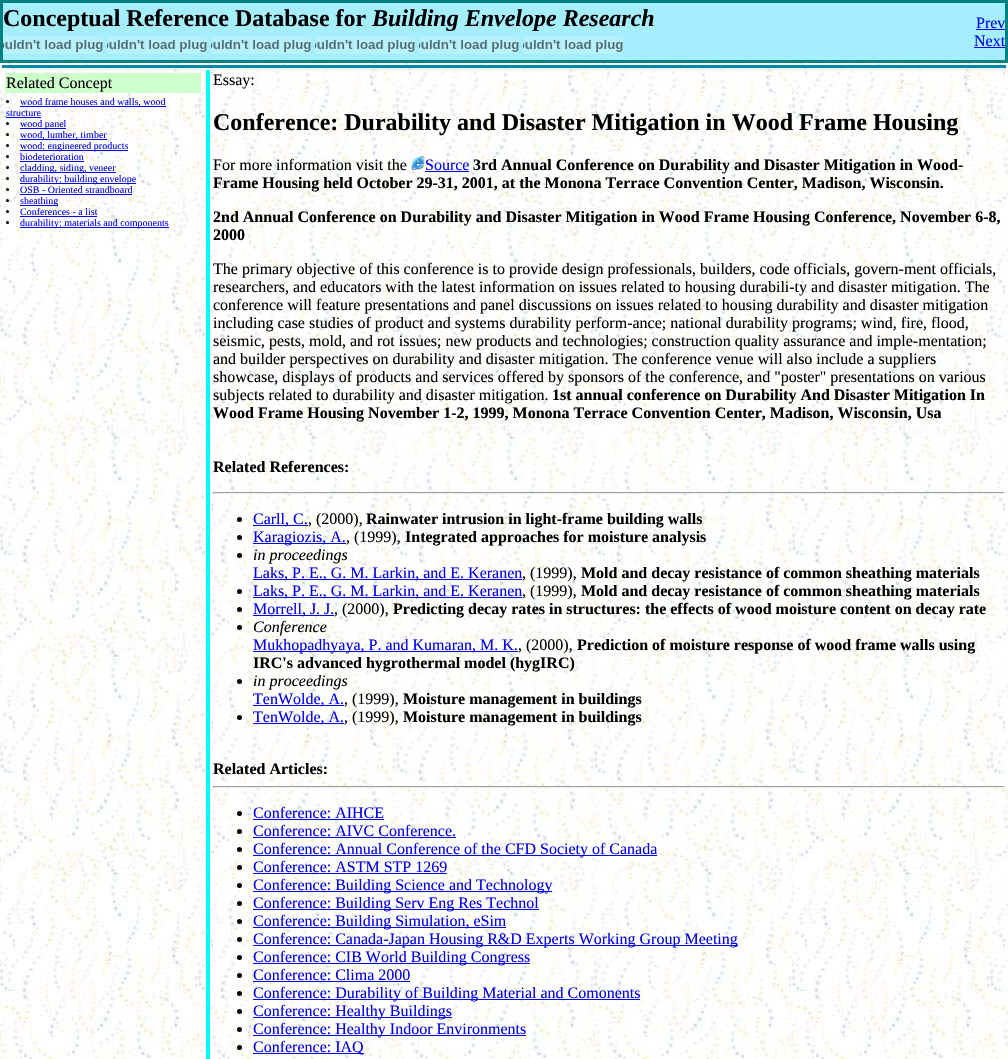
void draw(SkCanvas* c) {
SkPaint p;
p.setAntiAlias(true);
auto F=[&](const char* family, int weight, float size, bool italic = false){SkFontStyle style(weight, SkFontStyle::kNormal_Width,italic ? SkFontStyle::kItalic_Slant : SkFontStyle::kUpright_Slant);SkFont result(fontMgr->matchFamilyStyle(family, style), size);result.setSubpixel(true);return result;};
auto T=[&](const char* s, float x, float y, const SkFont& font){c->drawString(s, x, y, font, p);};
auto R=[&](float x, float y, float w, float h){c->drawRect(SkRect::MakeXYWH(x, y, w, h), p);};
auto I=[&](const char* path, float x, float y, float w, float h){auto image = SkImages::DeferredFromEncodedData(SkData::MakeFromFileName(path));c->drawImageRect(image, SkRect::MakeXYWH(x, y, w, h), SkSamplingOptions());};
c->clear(0xffffffff);
I("1.png",0,63,1008,996);
p.setColor(0xffa5eefe);
c->drawRect(SkRect::MakeXYWH(1.5,1.5,1005,60),p);
p.setStroke(true);
p.setStrokeWidth(3);
p.setColor(0xff008080);
c->drawRect(SkRect::MakeXYWH(1.5,1.5,1005,60),p);
auto f1 = F("Liberation Serif",700,24);
p.setStroke(false);
p.setColor(0xff000000);
T("Conceptual Reference Database for",3,26,f1);
auto f2 = F("Liberation Serif",700,24,true);
T("Building Envelope Research",372,26,f2);
auto f3 = F("Liberation Serif",400,16);
p.setColor(0xff0000ee);
T("Prev",976,28,f3);
R(976,29,29,1);
T("Next",974,46,f3);
R(974,47,31,1);
I("2.png",3,36,100,18);
I("2.png",107,36,100,18);
I("2.png",211,36,100,18);
I("2.png",315,36,100,18);
I("2.png",419,36,100,18);
I("2.png",523,36,100,18);
p.setColor(0xff0088aa);
R(2,65,1004,3);
p.setColor(0xffccffcc);
R(5,73,196,20);
p.setColor(0xff000000);
T("Related Concept",6,88,f3);
c->drawCircle(7.5,101.5,1.5,p);
p.setColor(0xff0000ee);
R(20,106,146,1);
auto f4 = F("Liberation Serif",400,10);
T("wood frame houses and walls, wood",20,105,f4);
T("structure",6,116,f4);
R(6,117,35,1);
p.setColor(0xff000000);
c->drawCircle(7.5,123.5,1.5,p);
p.setColor(0xff0000ee);
R(20,128,46,1);
T("wood panel",20,127,f4);
p.setColor(0xff000000);
c->drawCircle(7.5,134.5,1.5,p);
p.setColor(0xff0000ee);
R(20,139,87,1);
T("wood, lumber, timber",20,138,f4);
p.setColor(0xff000000);
c->drawCircle(7.5,145.5,1.5,p);
p.setColor(0xff0000ee);
R(20,150,108,1);
T("wood: engineered products",20,149,f4);
p.setColor(0xff000000);
c->drawCircle(7.5,156.5,1.5,p);
p.setColor(0xff0000ee);
T("biodeterioration",20,160,f4);
R(20,161,64,1);
p.setColor(0xff000000);
c->drawCircle(7.5,167.5,1.5,p);
p.setColor(0xff0000ee);
R(20,172,96,1);
T("cladding, siding, veneer",20,171,f4);
p.setColor(0xff000000);
c->drawCircle(7.5,178.5,1.5,p);
p.setColor(0xff0000ee);
R(20,183,116,1);
T("durability: building envelope",20,182,f4);
p.setColor(0xff000000);
c->drawCircle(7.5,189.5,1.5,p);
p.setColor(0xff0000ee);
T("OSB - Oriented strandboard",20,193,f4);
R(20,194,112,1);
p.setColor(0xff000000);
c->drawCircle(7.5,200.5,1.5,p);
p.setColor(0xff0000ee);
R(20,205,38,1);
T("sheathing",20,204,f4);
p.setColor(0xff000000);
c->drawCircle(7.5,211.5,1.5,p);
p.setColor(0xff0000ee);
T("Conferences - a list",20,215,f4);
R(20,216,77,1);
p.setColor(0xff000000);
c->drawCircle(7.5,222.5,1.5,p);
p.setColor(0xff0000ee);
R(20,227,149,1);
T("durability: materials and components",20,226,f4);
p.setColor(0xff00ffff);
R(206,70,4,989);
p.setColor(0xff000000);
T("Essay:",213,85,f3);
T("Conference: Durability and Disaster Mitigation in Wood Frame Housing",213,130,f1);
T("For more information visit the",213,170,f3);
I("3.png",411,156,14,14);
p.setColor(0xff0000ee);
T("Source",425,170,f3);
R(425,171,44,1);
auto f5 = F("Liberation Serif",700,16);
p.setColor(0xff000000);
T("3rd Annual Conference on Durability and Disaster Mitigation in Wood-",473,170,f5);
T("Frame Housing held October 29-31, 2001, at the Monona Terrace Convention Center, Madison, Wisconsin.",213,188,f5);
T("2nd Annual Conference on Durability and Disaster Mitigation in Wood Frame Housing Conference, November 6-8,",213,222,f5);
T("2000",213,240,f5);
T("The primary objective of this conference is to provide design professionals, builders, code officials, govern-ment officials,",213,274,f3);
T("researchers, and educators with the latest information on issues related to housing durabili-ty and disaster mitigation. The",213,292,f3);
T("conference will feature presentations and panel discussions on issues related to housing durability and disaster mitigation",213,310,f3);
T("including case studies of product and systems durability perform-ance; national durability programs; wind, fire, flood,",213,328,f3);
T("seismic, pests, mold, and rot issues; new products and technologies; construction quality assurance and imple-mentation;",213,346,f3);
T("and builder perspectives on durability and disaster mitigation. The conference venue will also include a suppliers",213,364,f3);
T("showcase, displays of products and services offered by sponsors of the conference, and \"poster\" presentations on various",213,382,f3);
T("subjects related to durability and disaster mitigation.",213,400,f3);
T("1st annual conference on Durability And Disaster Mitigation In",552,400,f5);
T("Wood Frame Housing November 1-2, 1999, Monona Terrace Convention Center, Madison, Wisconsin, Usa",213,418,f5);
T("Related References:",213,472,f5);
p.setColor(0xff9f9f9f);
R(213,492,792,1);
p.setColor(0xffeeeeee);
R(1004,492,1,2);
R(213,493,792,1);
p.setColor(0xff9f9f9f);
R(213,492,1,2);
p.setColor(0xff000000);
c->drawCircle(239.5,519.5,2.5,p);
p.setColor(0xff0000ee);
R(253,525,55,1);
T("Carll, C.",253,524,f3);
p.setColor(0xff000000);
T(", (2000),",308,524,f3);
T("Rainwater intrusion in light-frame building walls",366,524,f5);
c->drawCircle(239.5,537.5,2.5,p);
p.setColor(0xff0000ee);
R(253,543,93,1);
T("Karagiozis, A.",253,542,f3);
p.setColor(0xff000000);
T(", (1999),",346,542,f3);
T("Integrated approaches for moisture analysis",405,542,f5);
c->drawCircle(239.5,555.5,2.5,p);
auto f6 = F("Liberation Serif",400,16,true);
T("in proceedings",253,560,f6);
p.setColor(0xff0000ee);
R(253,579,269,1);
T("Laks, P. E., G. M. Larkin, and E. Keranen",253,578,f3);
p.setColor(0xff000000);
T(", (1999),",522,578,f3);
T("Mold and decay resistance of common sheathing materials",581,578,f5);
c->drawCircle(239.5,591.5,2.5,p);
p.setColor(0xff0000ee);
R(253,597,269,1);
T("Laks, P. E., G. M. Larkin, and E. Keranen",253,596,f3);
p.setColor(0xff000000);
T(", (1999),",522,596,f3);
T("Mold and decay resistance of common sheathing materials",581,596,f5);
c->drawCircle(239.5,609.5,2.5,p);
p.setColor(0xff0000ee);
R(253,615,81,1);
T("Morrell, J. J.",253,614,f3);
p.setColor(0xff000000);
T(", (2000),",334,614,f3);
T("Predicting decay rates in structures: the effects of wood moisture content on decay rate",393,614,f5);
c->drawCircle(239.5,627.5,2.5,p);
T("Conference",253,632,f6);
p.setColor(0xff0000ee);
R(253,651,265,1);
T("Mukhopadhyaya, P. and Kumaran, M. K.",253,650,f3);
p.setColor(0xff000000);
T(", (2000),",518,650,f3);
T("Prediction of moisture response of wood frame walls using",577,650,f5);
T("IRC's advanced hygrothermal model (hygIRC)",253,668,f5);
c->drawCircle(239.5,681.5,2.5,p);
T("in proceedings",253,686,f6);
p.setColor(0xff0000ee);
R(253,705,91,1);
T("TenWolde, A.",253,704,f3);
p.setColor(0xff000000);
T(", (1999),",344,704,f3);
T("Moisture management in buildings",403,704,f5);
c->drawCircle(239.5,717.5,2.5,p);
p.setColor(0xff0000ee);
R(253,723,91,1);
T("TenWolde, A.",253,722,f3);
p.setColor(0xff000000);
T(", (1999),",344,722,f3);
T("Moisture management in buildings",403,722,f5);
T("Related Articles:",213,774,f5);
p.setColor(0xff9f9f9f);
R(213,786,792,1);
p.setColor(0xffeeeeee);
R(1004,786,1,2);
R(213,787,792,1);
p.setColor(0xff9f9f9f);
R(213,786,1,2);
p.setColor(0xff000000);
c->drawCircle(239.5,813.5,2.5,p);
p.setColor(0xff0000ee);
T("Conference: AIHCE",253,818,f3);
R(253,819,131,1);
p.setColor(0xff000000);
c->drawCircle(239.5,831.5,2.5,p);
p.setColor(0xff0000ee);
T("Conference: AIVC Conference.",253,836,f3);
R(253,837,203,1);
p.setColor(0xff000000);
c->drawCircle(239.5,849.5,2.5,p);
p.setColor(0xff0000ee);
R(253,855,404,1);
T("Conference: Annual Conference of the CFD Society of Canada",253,854,f3);
p.setColor(0xff000000);
c->drawCircle(239.5,867.5,2.5,p);
p.setColor(0xff0000ee);
T("Conference: ASTM STP 1269",253,872,f3);
R(253,873,194,1);
p.setColor(0xff000000);
c->drawCircle(239.5,885.5,2.5,p);
p.setColor(0xff0000ee);
R(253,891,299,1);
T("Conference: Building Science and Technology",253,890,f3);
p.setColor(0xff000000);
c->drawCircle(239.5,903.5,2.5,p);
p.setColor(0xff0000ee);
R(253,909,286,1);
T("Conference: Building Serv Eng Res Technol",253,908,f3);
p.setColor(0xff000000);
c->drawCircle(239.5,921.5,2.5,p);
p.setColor(0xff0000ee);
R(253,927,253,1);
T("Conference: Building Simulation, eSim",253,926,f3);
p.setColor(0xff000000);
c->drawCircle(239.5,939.5,2.5,p);
p.setColor(0xff0000ee);
R(253,945,485,1);
T("Conference: Canada-Japan Housing R&D Experts Working Group Meeting",253,944,f3);
p.setColor(0xff000000);
c->drawCircle(239.5,957.5,2.5,p);
p.setColor(0xff0000ee);
R(253,963,277,1);
T("Conference: CIB World Building Congress",253,962,f3);
p.setColor(0xff000000);
c->drawCircle(239.5,975.5,2.5,p);
p.setColor(0xff0000ee);
T("Conference: Clima 2000",253,980,f3);
R(253,981,157,1);
p.setColor(0xff000000);
c->drawCircle(239.5,993.5,2.5,p);
p.setColor(0xff0000ee);
R(253,999,387,1);
T("Conference: Durability of Building Material and Comonents",253,998,f3);
p.setColor(0xff000000);
c->drawCircle(239.5,1011.5,2.5,p);
p.setColor(0xff0000ee);
R(253,1017,199,1);
T("Conference: Healthy Buildings",253,1016,f3);
p.setColor(0xff000000);
c->drawCircle(239.5,1029.5,2.5,p);
p.setColor(0xff0000ee);
R(253,1035,273,1);
T("Conference: Healthy Indoor Environments",253,1034,f3);
p.setColor(0xff000000);
c->drawCircle(239.5,1047.5,2.5,p);
p.setColor(0xff0000ee);
R(253,1053,111,1);
T("Conference: IAQ",253,1052,f3);
}
